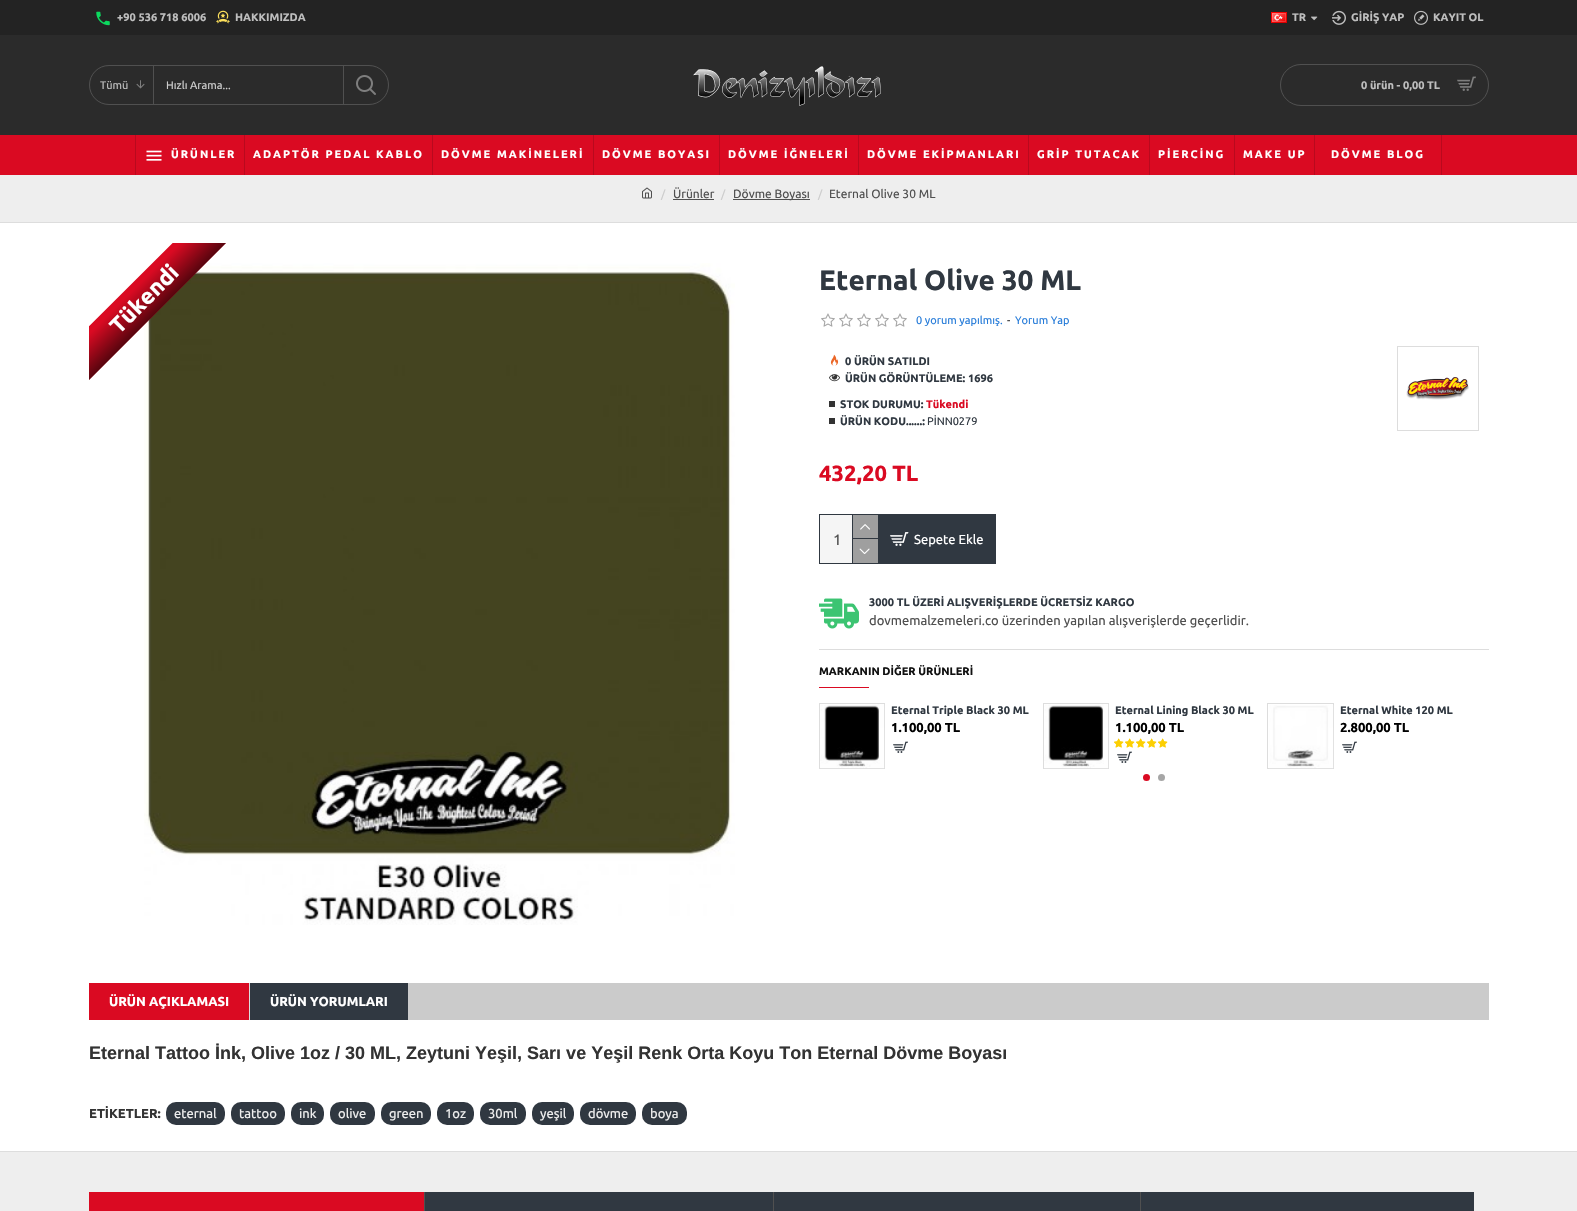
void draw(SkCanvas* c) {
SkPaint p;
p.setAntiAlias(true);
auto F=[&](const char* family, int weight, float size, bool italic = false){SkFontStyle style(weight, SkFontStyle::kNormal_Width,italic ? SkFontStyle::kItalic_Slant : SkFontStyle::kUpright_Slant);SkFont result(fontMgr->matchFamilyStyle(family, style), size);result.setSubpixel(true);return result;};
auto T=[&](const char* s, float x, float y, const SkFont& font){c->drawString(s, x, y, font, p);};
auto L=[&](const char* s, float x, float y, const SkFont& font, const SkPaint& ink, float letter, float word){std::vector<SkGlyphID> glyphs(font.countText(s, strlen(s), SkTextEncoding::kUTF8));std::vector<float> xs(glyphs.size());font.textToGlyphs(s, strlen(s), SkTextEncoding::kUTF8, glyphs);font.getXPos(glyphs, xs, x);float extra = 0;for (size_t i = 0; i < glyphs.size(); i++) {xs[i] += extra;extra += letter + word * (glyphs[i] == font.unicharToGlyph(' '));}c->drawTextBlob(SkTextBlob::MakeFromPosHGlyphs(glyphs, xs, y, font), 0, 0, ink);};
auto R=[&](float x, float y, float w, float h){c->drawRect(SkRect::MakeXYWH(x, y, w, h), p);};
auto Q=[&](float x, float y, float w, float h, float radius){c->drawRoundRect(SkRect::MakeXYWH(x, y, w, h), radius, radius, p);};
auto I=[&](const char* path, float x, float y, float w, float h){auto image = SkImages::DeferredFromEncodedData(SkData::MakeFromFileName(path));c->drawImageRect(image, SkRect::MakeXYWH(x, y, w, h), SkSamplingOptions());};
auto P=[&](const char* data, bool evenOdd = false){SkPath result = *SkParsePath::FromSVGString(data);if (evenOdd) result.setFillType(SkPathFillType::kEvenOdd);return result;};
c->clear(0xffffffff);
p.setColor(0xff2b2b2b);
R(0,35,1577,100);
p.setColor(0xff232323);
R(0,0,1577,35);
I("1.png",96,11,14,15);
auto f1 = F("Ubuntu",700,11);
p.setColor(0xffbebebe);
T("+90 536 718 6006",117,21,f1);
I("2.png",216,10,14,14);
T("HAKKIMIZDA",235,21,f1);
I("3.png",1271,12,16,11);
T("TR",1292,21,f1);
I("4.png",1311,16,7,5);
I("5.png",1332,10,14,15);
T("GİRİŞ YAP",1351,21,f1);
I("6.png",1414,10,14,15);
T("KAYIT OL",1433,21,f1);
p.setStroke(true);
p.setStrokeWidth(1);
p.setColor(0xff505050);
c->drawRoundRect(SkRect::MakeXYWH(89.5,65.5,299,39),19.5,19.5,p);
p.setStroke(false);
R(153,66,1,38);
auto f2 = F("Ubuntu",400,11);
p.setColor(0xffbebebe);
T("Tümü",100,89,f2);
I("7.png",136,80,9,9);
p.setColor(0xffcccccc);
T("Hızlı Arama...",166,89,f2);
p.setColor(0xff505050);
R(343,66,1,38);
I("8.png",356,75,20,20);
I("9.png",693,66,188,40);
p.setStroke(true);
c->drawRoundRect(SkRect::MakeXYWH(1280.5,64.5,208,41),20.5,20.5,p);
p.setStroke(false);
p.setColor(0xffbebebe);
T("0 ürün - 0,00 TL",1361,89,f1);
I("10.png",1457,76,19,15);
p.setColor(0xffda0a22);
R(0,135,1577,40);
p.setColor(0xffb9091e);
R(1441,135,1,40);
R(135,135,1,40);
I("11.png",146,150,16,11);
p.setColor(0xffffffff);
L("ÜRÜNLER",171,158,f1,p,2,0);
p.setColor(0xffb9091e);
R(244,135,1,40);
p.setColor(0xffffffff);
L("ADAPTÖR PEDAL KABLO",253,158,f1,p,2,0);
p.setColor(0xffb9091e);
R(432,135,1,40);
p.setColor(0xffffffff);
L("DÖVME MAKİNELERİ",441,158,f1,p,2,0);
p.setColor(0xffb9091e);
R(593,135,1,40);
p.setColor(0xffffffff);
L("DÖVME BOYASI",602,158,f1,p,2,0);
p.setColor(0xffb9091e);
R(719,135,1,40);
p.setColor(0xffffffff);
L("DÖVME İĞNELERİ",728,158,f1,p,2,0);
p.setColor(0xffb9091e);
R(858,135,1,40);
p.setColor(0xffffffff);
L("DÖVME EKİPMANLARI",867,158,f1,p,2,0);
p.setColor(0xffb9091e);
R(1028,135,1,40);
p.setColor(0xffffffff);
L("GRİP TUTACAK",1037,158,f1,p,2,0);
p.setColor(0xffb9091e);
R(1149,135,1,40);
p.setColor(0xffffffff);
L("PİERCİNG",1158,158,f1,p,2,0);
p.setColor(0xffb9091e);
R(1234,135,1,40);
p.setColor(0xffffffff);
L("MAKE UP",1243,158,f1,p,2,0);
p.setColor(0xffb9091e);
R(1314,135,1,40);
p.setColor(0xffffffff);
L("DÖVME BLOG",1331,158,f1,p,2,0);
p.setColor(0xffeeeeee);
R(0,175,1577,47);
p.setColor(0xffdddddd);
R(0,222,1577,1);
I("12.png",642,187,10,12);
p.setColor(0xffcccccc);
T("/",661,198,f2);
auto f3 = F("Ubuntu",400,12);
p.setColor(0xff505050);
T("Ürünler",673,198,f3);
R(673,199,41,1);
p.setColor(0xffcccccc);
T("/",721,198,f2);
p.setColor(0xff505050);
R(733,199,77,1);
T("Dövme Boyası",733,198,f3);
p.setColor(0xffcccccc);
T("/",818,198,f2);
p.setColor(0xff505050);
T("Eternal Olive 30 ML",829,198,f3);
I("13.png",144,263,591,662);
c->save();
c->clipRect(SkRect::MakeXYWH(89,243,700,700));
p.setColor(0xffda0a22);
c->drawPath(P("M-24 439l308-307c3-3 8-3 11 0l16 16c2 3 2 7 0 10l-308 308c-3 3-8 3-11 0l-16-16c-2-3-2-8 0-11z"),p);
{
const SkColor colors[] = {0x99000000,0x00000000};
const float stops[] = {0,.85};
const SkPoint ends[] = {{157,312}, {130,285}};
p.setShader(SkGradientShader::MakeLinear(ends, colors, stops, 2, SkTileMode::kClamp));
p.setAlpha(255);
}
c->drawPath(P("M-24 439l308-307c3-3 8-3 11 0l16 16c2 3 2 7 0 10l-308 308c-3 3-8 3-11 0l-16-16c-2-3-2-8 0-11z"),p);
c->restore();
auto f4 = F("Ubuntu",700,22.5);
p.setShader(nullptr);
p.setColor(0xffffffff);
c->save();
c->rotate(-45,119,335);
T("Tükendi",119,335,f4);
c->restore();
auto f5 = F("Ubuntu",700,28);
p.setColor(0xff303841);
T("Eternal Olive 30 ML",819,290,f5);
I("14.png",821,313,14,14);
I("14.png",839,313,14,14);
I("14.png",857,313,14,14);
I("14.png",875,313,14,14);
I("14.png",893,313,14,14);
p.setColor(0xff277cd9);
T("0 yorum yapılmış.",916,324,f2);
p.setColor(0xff333333);
T("-",1007,324,f2);
p.setColor(0xff277cd9);
T("Yorum Yap",1015,324,f2);
I("15.png",830,354,9,12);
p.setColor(0xff303841);
T("0 ÜRÜN SATILDI",845,365,f1);
I("16.png",829,374,11,8);
T("ÜRÜN GÖRÜNTÜLEME: 1696",845,382,f1);
p.setStroke(true);
p.setColor(0xffdddddd);
c->drawRect(SkRect::MakeXYWH(1397.5,346.5,81,84),p);
I("17.png",1406,377,63,23);
p.setStroke(false);
p.setColor(0xff333333);
R(829,401,6,6);
p.setColor(0xff303841);
T("STOK DURUMU:",840,408,f1);
p.setColor(0xffda0a22);
T("Tükendi",926,408,f1);
p.setColor(0xff333333);
R(829,418,6,6);
p.setColor(0xff303841);
T("ÜRÜN KODU......:",840,425,f1);
T("PİNN0279",927,425,f2);
auto f6 = F("Ubuntu",700,22);
p.setColor(0xffda0a22);
T("432,20 TL",819,481,f6);
p.setStroke(true);
p.setColor(0xff303841);
c->drawRect(SkRect::MakeXYWH(819.5,514.5,59,49),p);
p.setStroke(false);
p.setColor(0xfff5f5f5);
R(820,515,32,48);
auto f7 = F("Ubuntu",400,15);
p.setColor(0xff505050);
T("1",833,545,f7);
p.setColor(0xff303841);
R(852,515,1,48);
p.setColor(0xff9f9f9f);
R(853,515,25,23);
p.setColor(0xff303841);
R(853,538,25,1);
I("18.png",860,524,10,6);
p.setColor(0xff9f9f9f);
R(853,539,25,24);
I("19.png",859,548,11,6);
p.setColor(0xff303841);
R(879,514,117,50);
I("20.png",890,532,19,14);
auto f8 = F("Ubuntu",400,13);
p.setColor(0xffffffff);
T("Sepete Ekle",914,544,f8);
p.setColor(0xffdddddd);
R(819,649,670,1);
I("21.png",819,598,40,31);
p.setColor(0xff303841);
T("3000 TL ÜZERİ ALIŞVERİŞLERDE ÜCRETSİZ KARGO",869,606,f1);
p.setColor(0xff505050);
T("dovmemalzemeleri.co üzerinden yapılan alışverişlerde geçerlidir.",869,625,f8);
p.setColor(0xff111111);
T("MARKANIN DİĞER ÜRÜNLERİ",819,675,f1);
p.setColor(0xffda0a22);
R(819,687,50,1);
p.setStroke(true);
p.setColor(0xffdddddd);
c->drawRect(SkRect::MakeXYWH(819.5,703.5,65,65),p);
I("22.png",820,704,65,65);
p.setStroke(false);
p.setColor(0xff303841);
T("Eternal Triple Black 30 ML",891,714,f1);
auto f9 = F("Ubuntu",700,13);
p.setColor(0xff000000);
T("1.100,00 TL",891,732,f9);
I("23.png",893,741,15,12);
p.setStroke(true);
p.setColor(0xffdddddd);
c->drawRect(SkRect::MakeXYWH(1043.5,703.5,65,65),p);
I("24.png",1044,704,65,65);
p.setStroke(false);
p.setColor(0xff303841);
T("Eternal Lining Black 30 ML",1115,714,f1);
p.setColor(0xff000000);
T("1.100,00 TL",1115,732,f9);
I("25.png",1114,738,10,10);
I("26.png",1114,738,10,10);
I("25.png",1125,738,10,10);
I("26.png",1125,738,10,10);
I("25.png",1136,738,10,10);
I("26.png",1136,738,10,10);
I("25.png",1147,738,10,10);
I("26.png",1147,738,10,10);
I("25.png",1158,738,10,10);
I("26.png",1158,738,10,10);
I("23.png",1117,751,15,12);
p.setStroke(true);
p.setColor(0xffdddddd);
c->drawRect(SkRect::MakeXYWH(1267.5,703.5,66,65),p);
I("27.png",1269,705,65,64);
p.setStroke(false);
p.setColor(0xff303841);
T("Eternal White 120 ML",1340,714,f1);
p.setColor(0xff000000);
T("2.800,00 TL",1340,732,f9);
I("23.png",1342,741,15,12);
p.setColor(0xffda0a22);
c->drawCircle(1146.5,777.5,3.5,p);
p.setColor(0xffa6a6a6);
c->drawCircle(1161.5,777.5,3.5,p);
p.setColor(0xffcbcbcb);
R(408,983,1081,37);
p.setColor(0xffda0a22);
R(89,983,160,37);
p.setColor(0xffffffff);
T("ÜRÜN AÇIKLAMASI",109,1006,f9);
p.setColor(0xffdddddd);
R(249,983,1,37);
p.setColor(0xff303841);
R(250,983,158,37);
p.setColor(0xffffffff);
T("ÜRÜN YORUMLARI",270,1006,f9);
auto f10 = F("Liberation Sans",700,18);
p.setColor(0xff333333);
T("Eternal Tattoo İnk, Olive 1oz / 30 ML, Zeytuni Yeşil, Sarı ve Yeşil Renk Orta Koyu Ton Eternal Dövme Boyası",89,1059,f10);
T("ETİKETLER:",89,1118,f9);
p.setColor(0xff303841);
Q(166,1102,59,23,10);
p.setColor(0xffeeeeee);
T("eternal",174,1118,f8);
p.setColor(0xff303841);
Q(231,1102,54,23,10);
p.setColor(0xffeeeeee);
T("tattoo",239,1118,f8);
p.setColor(0xff303841);
Q(291,1102,33,23,10);
p.setColor(0xffeeeeee);
T("ink",299,1118,f8);
p.setColor(0xff303841);
Q(330,1102,45,23,10);
p.setColor(0xffeeeeee);
T("olive",338,1118,f8);
p.setColor(0xff303841);
Q(381,1102,50,23,10);
p.setColor(0xffeeeeee);
T("green",389,1118,f8);
p.setColor(0xff303841);
Q(437,1102,37,23,10);
p.setColor(0xffeeeeee);
T("1oz",445,1118,f8);
p.setColor(0xff303841);
Q(480,1102,46,23,10);
p.setColor(0xffeeeeee);
T("30ml",488,1118,f8);
p.setColor(0xff303841);
Q(532,1102,42,23,10);
p.setColor(0xffeeeeee);
T("yeşil",540,1118,f8);
p.setColor(0xff303841);
Q(580,1102,56,23,10);
p.setColor(0xffeeeeee);
T("dövme",588,1118,f8);
p.setColor(0xff303841);
Q(642,1102,45,23,10);
p.setColor(0xffeeeeee);
T("boya",650,1118,f8);
R(0,1152,1577,59);
p.setColor(0xffdddddd);
R(0,1151,1577,1);
p.setColor(0xffda0a22);
R(89,1192,335,19);
p.setColor(0xff505050);
R(424,1192,1,19);
p.setColor(0xff303841);
R(425,1192,348,19);
p.setColor(0xff505050);
R(773,1192,1,19);
p.setColor(0xff303841);
R(774,1192,366,19);
p.setColor(0xff505050);
R(1140,1192,1,19);
p.setColor(0xff303841);
R(1141,1192,333,19);
}
